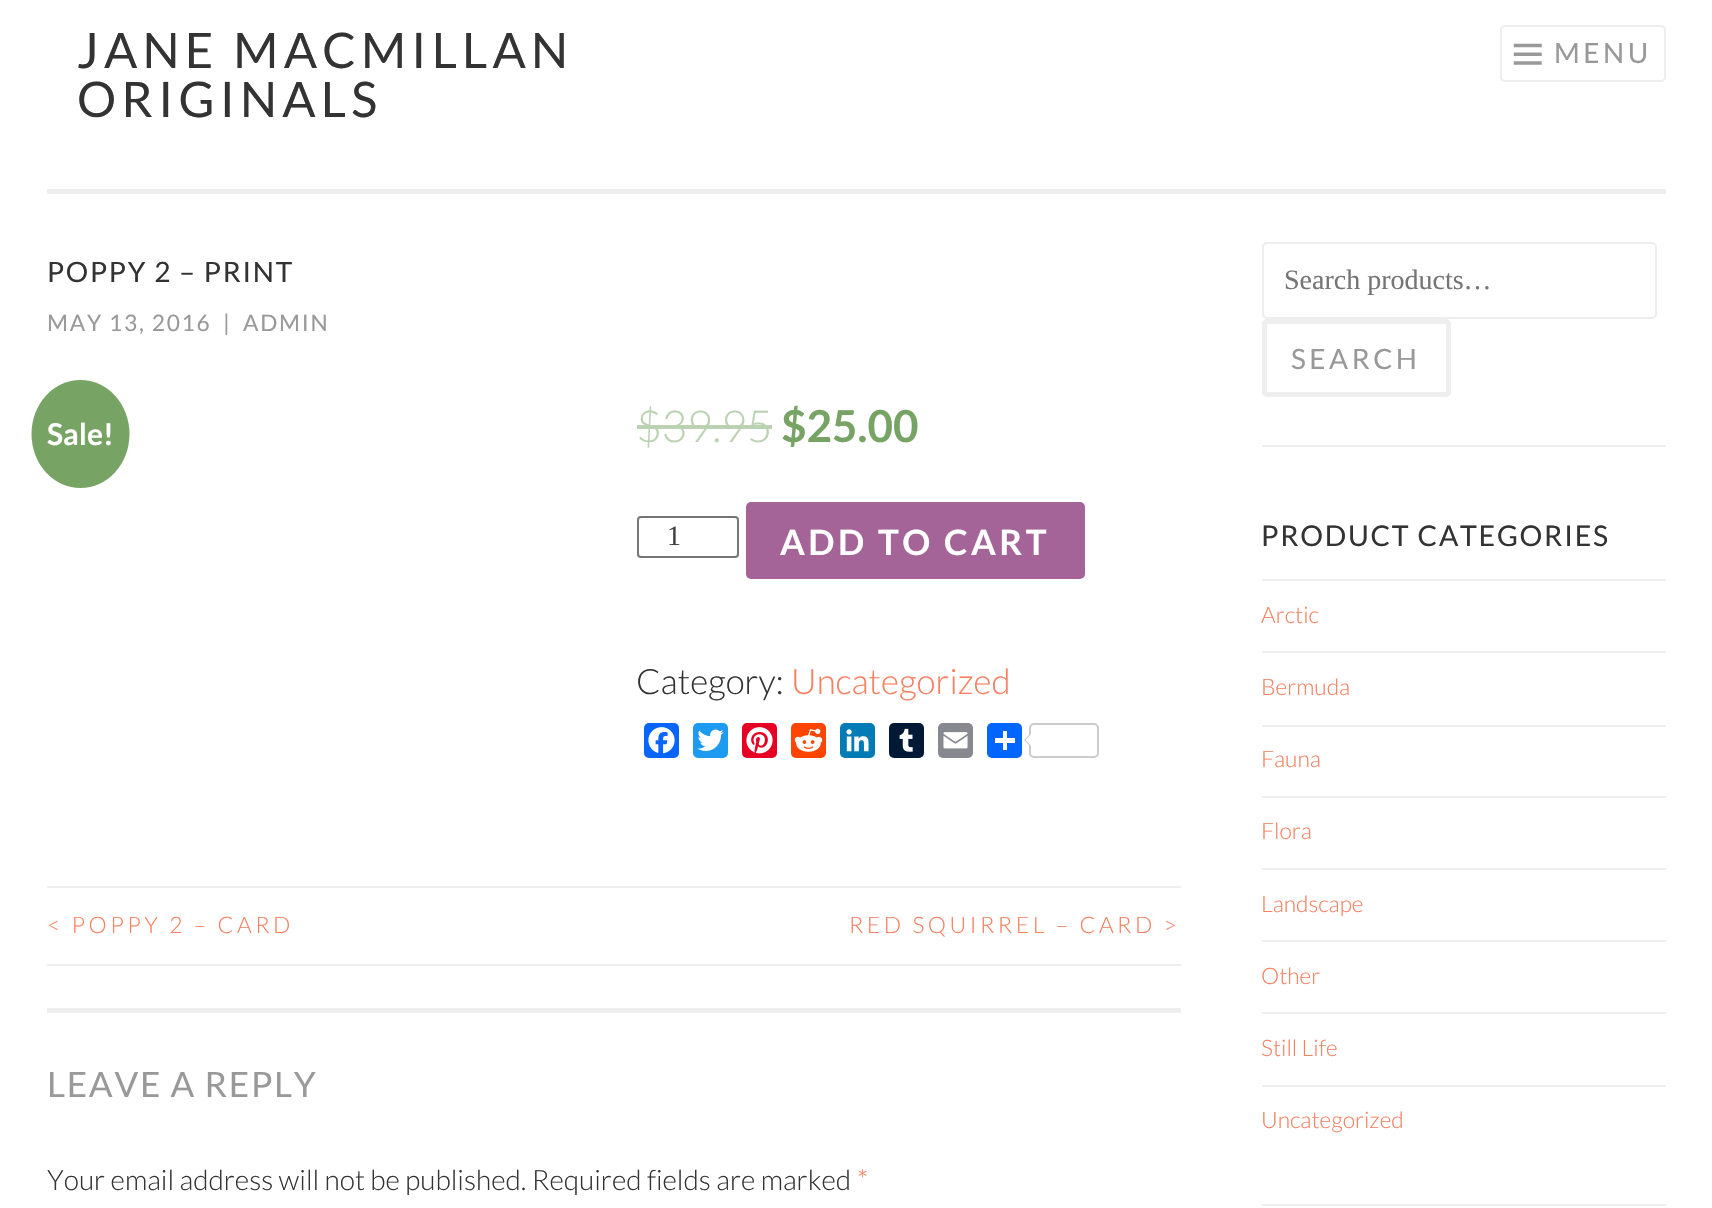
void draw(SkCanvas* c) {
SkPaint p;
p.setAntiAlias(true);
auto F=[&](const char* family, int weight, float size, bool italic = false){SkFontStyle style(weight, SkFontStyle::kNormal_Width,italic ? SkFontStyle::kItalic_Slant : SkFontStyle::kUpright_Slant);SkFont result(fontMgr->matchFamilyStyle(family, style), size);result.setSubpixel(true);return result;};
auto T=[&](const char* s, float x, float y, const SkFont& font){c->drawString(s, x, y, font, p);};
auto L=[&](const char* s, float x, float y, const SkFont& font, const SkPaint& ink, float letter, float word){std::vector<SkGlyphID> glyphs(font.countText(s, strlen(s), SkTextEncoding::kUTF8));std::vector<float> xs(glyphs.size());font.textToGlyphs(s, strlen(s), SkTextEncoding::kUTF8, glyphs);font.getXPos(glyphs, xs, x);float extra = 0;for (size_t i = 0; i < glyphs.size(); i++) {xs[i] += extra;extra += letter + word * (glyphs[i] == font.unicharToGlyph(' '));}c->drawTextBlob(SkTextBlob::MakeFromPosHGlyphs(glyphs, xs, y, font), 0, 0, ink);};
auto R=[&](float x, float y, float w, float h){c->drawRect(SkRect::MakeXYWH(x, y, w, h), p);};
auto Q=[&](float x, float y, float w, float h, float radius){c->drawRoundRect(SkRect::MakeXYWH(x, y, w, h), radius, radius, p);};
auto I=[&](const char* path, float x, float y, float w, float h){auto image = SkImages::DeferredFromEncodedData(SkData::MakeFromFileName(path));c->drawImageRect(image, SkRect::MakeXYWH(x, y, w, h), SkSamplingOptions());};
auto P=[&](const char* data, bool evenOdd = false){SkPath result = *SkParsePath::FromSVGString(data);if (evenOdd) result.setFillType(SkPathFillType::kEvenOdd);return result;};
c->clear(0xffffffff);
p.setColor(0xffeeeeee);
R(47,189,1619,5);
auto f1 = F("Lato",400,49);
p.setColor(0xff333333);
L("JANE MACMILLAN",77,68,f1,p,5.25,0);
L("ORIGINALS",77,117,f1,p,5.25,0);
p.setStroke(true);
p.setStrokeWidth(2);
p.setColor(0xffeeeeee);
c->drawRoundRect(SkRect::MakeXYWH(1501,26,164,55),4,4,p);
I("1.png",1513,43,29,22);
auto f2 = F("Lato",400,28);
p.setStroke(false);
p.setColor(0xff999999);
L("MENU",1554,63,f2,p,3.5,0);
p.setColor(0xff333333);
L("POPPY 2 – PRINT",47,282,f2,p,1.75,0);
auto f3 = F("Lato",400,22.75);
p.setColor(0xff999999);
L("MAY 13, 2016",47,331,f3,p,1.75,0);
L("|",223,331,f3,p,1.75,0);
L("ADMIN",243,331,f3,p,1.75,0);
p.setColor(0xff77a464);
c->drawOval(SkRect::MakeXYWH(31.5,380,98,108),p);
auto f4 = F("Lato",700,30);
p.setColor(0xffffffff);
T("Sale!",47,445,f4);
auto f5 = F("Lato",300,44);
p.setColor(0xffbbd2b2);
T("$39.95",636,442,f5);
R(637,425,135,4);
auto f6 = F("Lato",700,44);
p.setColor(0xff77a464);
T("$25.00",781,442,f6);
p.setStroke(true);
p.setColor(0xff767676);
c->drawRoundRect(SkRect::MakeXYWH(638,517,100,40),3,3,p);
auto f7 = F("Liberation Serif",400,28);
p.setStroke(false);
p.setColor(0xff404040);
T("1",667,545,f7);
p.setColor(0xffa46497);
Q(746,502,339,77,5);
auto f8 = F("Lato",700,35);
p.setColor(0xffffffff);
L("ADD TO CART",780,555,f8,p,3.5,0);
auto f9 = F("Lato",300,35);
p.setColor(0xff333333);
T("Category:",636,694,f9);
p.setColor(0xfff68060);
T("Uncategorized",791,694,f9);
p.setColor(0xff0866ff);
Q(644,723,35,35,5);
I("2.png",648,727,27,27);
p.setColor(0xff1d9bf0);
Q(693,723,35,35,5);
I("3.png",697,729,27,22);
p.setColor(0xffe60023);
Q(742,723,35,35,5);
I("4.png",746,727,27,27);
p.setColor(0xffff4500);
Q(791,723,35,35,5);
I("5.png",794,728,29,24);
p.setColor(0xff007bb5);
Q(840,723,35,35,5);
I("6.png",846,729,23,23);
p.setColor(0xff001935);
Q(889,723,35,35,5);
I("7.png",899,728,14,24);
p.setColor(0xff888990);
Q(938,723,35,35,5);
I("8.png",943,732,25,17);
p.setColor(0xff0166ff);
Q(987,723,35,35,5);
p.setColor(0xffffffff);
R(1003,731,4,19);
R(995,738,20,5);
p.setStroke(true);
p.setColor(0xffcccccc);
c->drawRoundRect(SkRect::MakeXYWH(1030,724,68,33),4,4,p);
p.setStroke(false);
c->drawPath(P("M1031 733v14l-7-7z"),p);
p.setColor(0xffffffff);
c->drawPath(P("M1032.5 733v14l-7-7z"),p);
p.setColor(0xffeeeeee);
R(47,886,1134,2);
R(47,964,1134,2);
auto f10 = F("Lato",300,22.75);
p.setColor(0xfff68060);
L("< POPPY 2 – CARD",47,933,f10,p,3.5,0);
L("RED SQUIRREL – CARD >",849,933,f10,p,3.5,0);
p.setColor(0xffeeeeee);
R(47,1008,1134,5);
auto f11 = F("Lato",400,35);
p.setColor(0xff999999);
L("LEAVE A REPLY",47,1097,f11,p,1.75,0);
auto f12 = F("Lato",300,28);
p.setColor(0xff333333);
T("Your email address will not be published. Required fields are marked",47,1190,f12);
p.setColor(0xfff68060);
T("*",857,1190,f12);
p.setColor(0xffeeeeee);
R(1262,445,404,2);
p.setStroke(true);
c->drawRoundRect(SkRect::MakeXYWH(1263,243,393,75),4,4,p);
p.setStroke(false);
p.setColor(0xff757575);
T("Search products…",1284,289,f7);
p.setStroke(true);
p.setStrokeWidth(5);
p.setColor(0xffeeeeee);
c->drawRoundRect(SkRect::MakeXYWH(1264.5,321.5,184,73),2.5,2.5,p);
p.setStroke(false);
p.setColor(0xff999999);
L("SEARCH",1291,369,f2,p,3.5,0);
p.setColor(0xffeeeeee);
R(1262,1204,404,2);
auto f13 = F("Lato",400,28.5);
p.setColor(0xff333333);
L("PRODUCT CATEGORIES",1261,546,f13,p,1.75,0);
p.setColor(0xffeeeeee);
R(1262,579,404,2);
p.setColor(0xfff68060);
T("Arctic",1261,623,f10);
p.setColor(0xffeeeeee);
R(1262,651,404,2);
p.setColor(0xfff68060);
T("Bermuda",1261,695,f10);
p.setColor(0xffeeeeee);
R(1262,725,404,2);
p.setColor(0xfff68060);
T("Fauna",1261,767,f10);
p.setColor(0xffeeeeee);
R(1262,796,404,2);
p.setColor(0xfff68060);
T("Flora",1261,839,f10);
p.setColor(0xffeeeeee);
R(1262,868,404,2);
p.setColor(0xfff68060);
T("Landscape",1261,912,f10);
p.setColor(0xffeeeeee);
R(1262,940,404,2);
p.setColor(0xfff68060);
T("Other",1261,984,f10);
p.setColor(0xffeeeeee);
R(1262,1012,404,2);
p.setColor(0xfff68060);
T("Still Life",1261,1056,f10);
p.setColor(0xffeeeeee);
R(1262,1085,404,2);
p.setColor(0xfff68060);
T("Uncategorized",1261,1128,f10);
}
